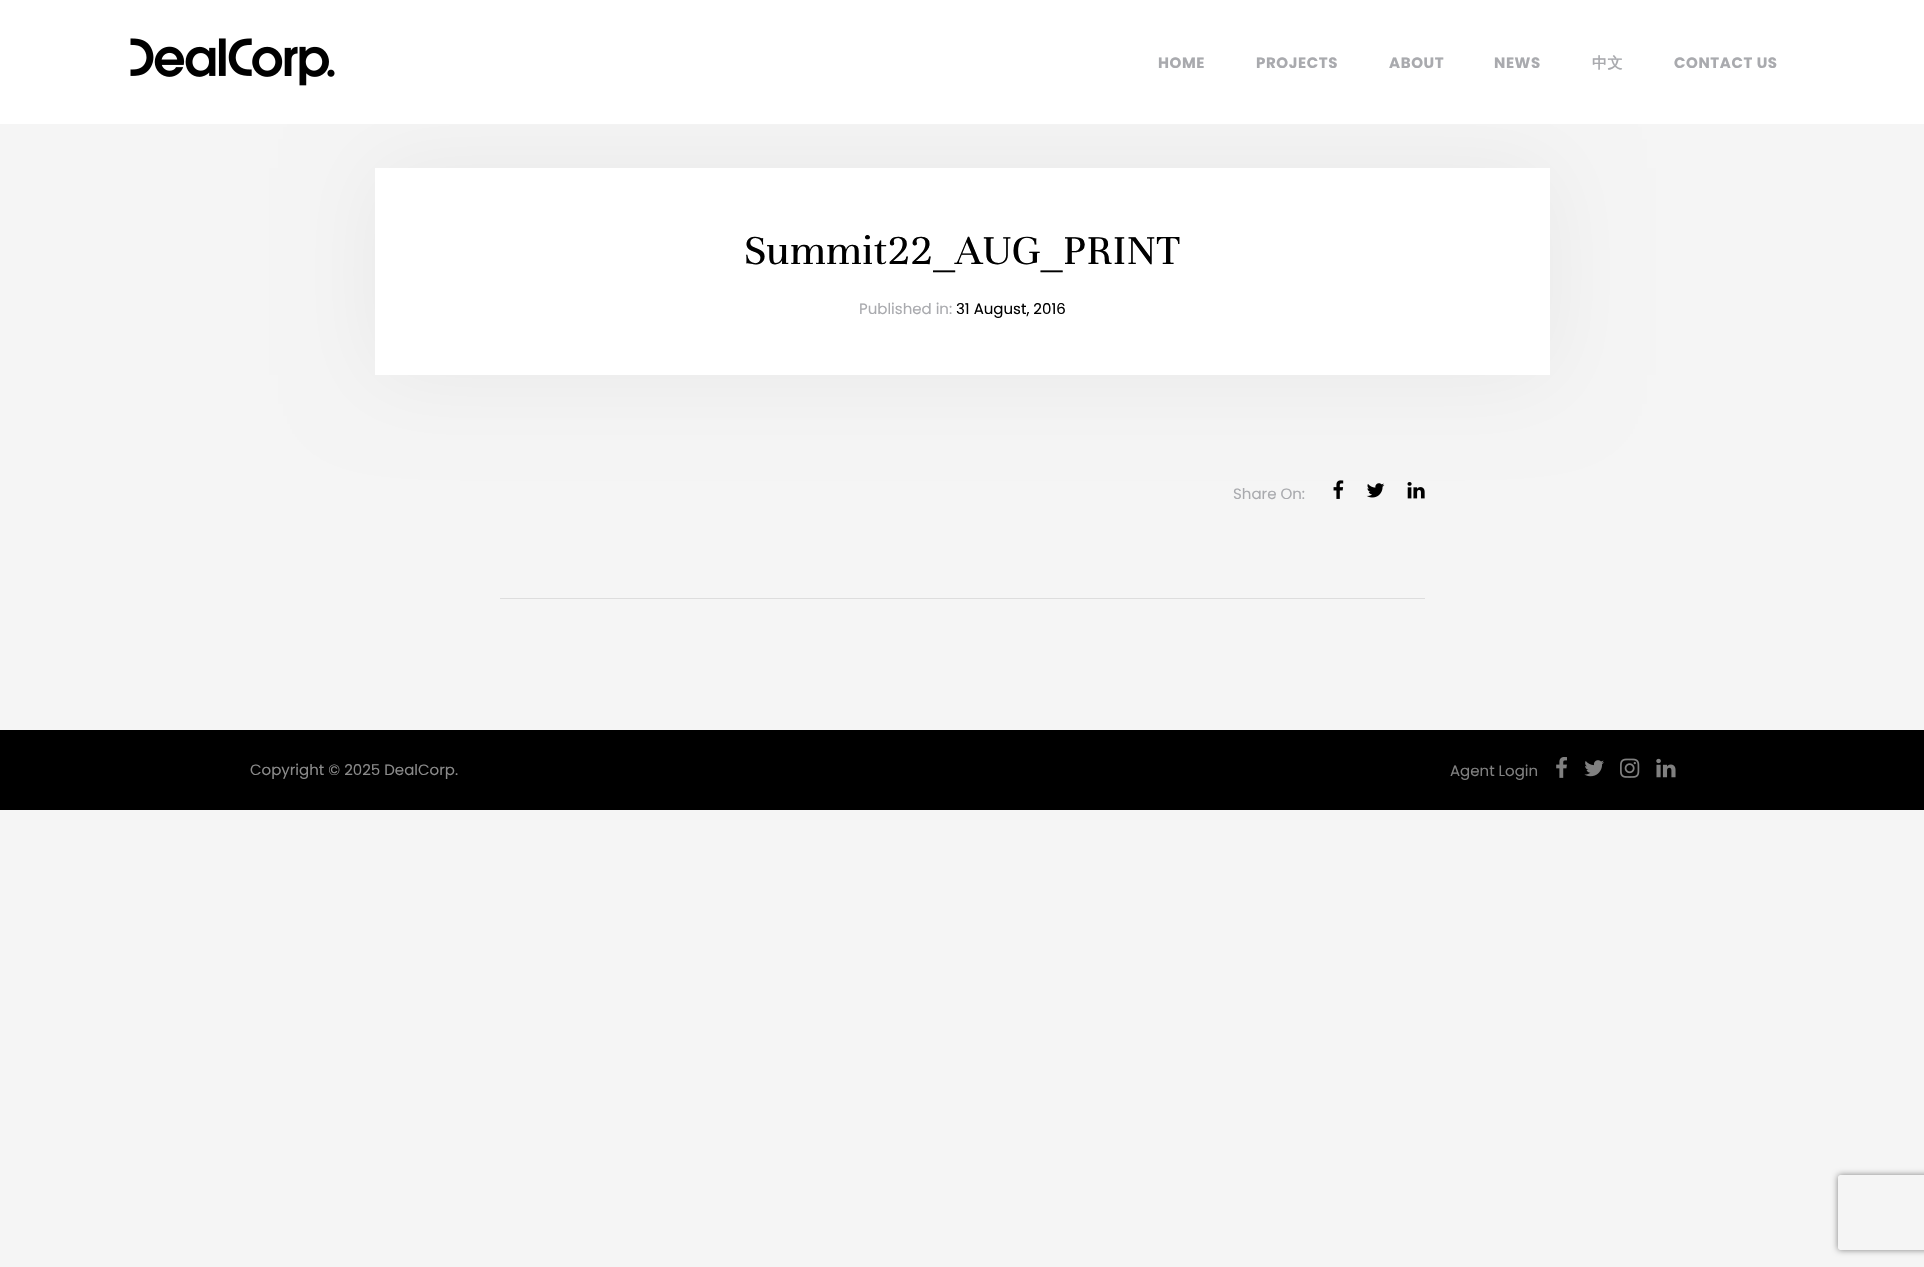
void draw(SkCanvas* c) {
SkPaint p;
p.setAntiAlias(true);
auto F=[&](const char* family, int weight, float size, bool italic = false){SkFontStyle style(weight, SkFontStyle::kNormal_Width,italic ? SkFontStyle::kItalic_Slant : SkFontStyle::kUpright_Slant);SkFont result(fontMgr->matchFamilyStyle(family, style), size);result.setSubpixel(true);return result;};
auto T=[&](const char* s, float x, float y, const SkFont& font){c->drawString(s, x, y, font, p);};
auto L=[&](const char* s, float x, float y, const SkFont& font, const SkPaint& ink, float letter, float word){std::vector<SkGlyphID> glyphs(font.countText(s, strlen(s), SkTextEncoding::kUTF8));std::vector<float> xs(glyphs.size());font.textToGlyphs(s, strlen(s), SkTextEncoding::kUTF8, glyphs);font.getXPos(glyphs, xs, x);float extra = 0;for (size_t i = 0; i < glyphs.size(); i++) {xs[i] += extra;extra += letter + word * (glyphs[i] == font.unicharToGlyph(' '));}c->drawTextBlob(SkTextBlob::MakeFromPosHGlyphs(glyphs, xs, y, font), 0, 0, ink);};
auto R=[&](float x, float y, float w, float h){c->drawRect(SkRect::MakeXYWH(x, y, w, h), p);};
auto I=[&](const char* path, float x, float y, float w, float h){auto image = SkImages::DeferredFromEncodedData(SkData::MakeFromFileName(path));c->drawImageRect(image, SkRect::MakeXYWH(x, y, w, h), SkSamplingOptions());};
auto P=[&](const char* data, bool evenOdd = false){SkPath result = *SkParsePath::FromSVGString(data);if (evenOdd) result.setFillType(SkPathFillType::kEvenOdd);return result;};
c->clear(0xfff5f5f5);
p.setColor(0x0d000000);
p.setMaskFilter(SkMaskFilter::MakeBlur(kNormal_SkBlurStyle, 44));
c->drawRect(SkRect::MakeXYWH(375,168,1175,207),p);
p.setMaskFilter(nullptr);
p.setColor(0xffffffff);
R(0,0,1924,124);
I("1.png",130,38,205,48);
auto f1 = F("Poppins",700,15);
p.setColor(0xffa9aaae);
L("HOME",1158,68,f1,p,.6,0);
L("PROJECTS",1256,68,f1,p,.6,0);
L("ABOUT",1389,68,f1,p,.6,0);
L("NEWS",1494,68,f1,p,.6,0);
auto f2 = F("WenQuanYi Zen Hei",700,15);
L("中文",1592,68,f2,p,.6,0);
L("CONTACT US",1674,68,f1,p,.6,0);
p.setColor(0xffffffff);
R(375,168,1175,207);
auto f3 = F("Unna",400,45);
p.setColor(0xff000000);
T("Summit22_AUG_PRINT",744,264,f3);
auto f4 = F("Poppins",400,15);
p.setColor(0xffa9aaae);
T("Published in:",859,314,f4);
p.setColor(0xff000000);
T("31 August, 2016",956,314,f4);
p.setColor(0xffa9aaae);
T("Share On:",1233,499,f4);
I("2.png",1333,480,11,19);
I("3.png",1366,483,19,15);
I("4.png",1407,482,18,17);
p.setColor(0xffdddddd);
R(500,598,925,1);
p.setColor(0xff000000);
R(0,730,1924,80);
p.setColor(0xff8a8a8a);
T("Copyright © 2025 DealCorp.",250,775,f4);
p.setColor(0xff808080);
T("Agent Login",1450,776,f4);
I("5.png",1556,757,11,21);
I("6.png",1584,760,20,17);
I("7.png",1620,758,20,20);
I("8.png",1656,758,20,20);
c->save();
c->clipPath(P("M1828 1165h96v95h-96zm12.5 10h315c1.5 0 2.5 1 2.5 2.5v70c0 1.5-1 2.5-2.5 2.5h-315c-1.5 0-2.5-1-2.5-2.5v-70c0-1.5 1-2.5 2.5-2.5z",true),true);
p.setMaskFilter(SkMaskFilter::MakeBlur(kNormal_SkBlurStyle, 3));
c->drawRoundRect(SkRect::MakeXYWH(1838,1175,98,75),2.5,2.5,p);
p.setMaskFilter(nullptr);
c->restore();
}
